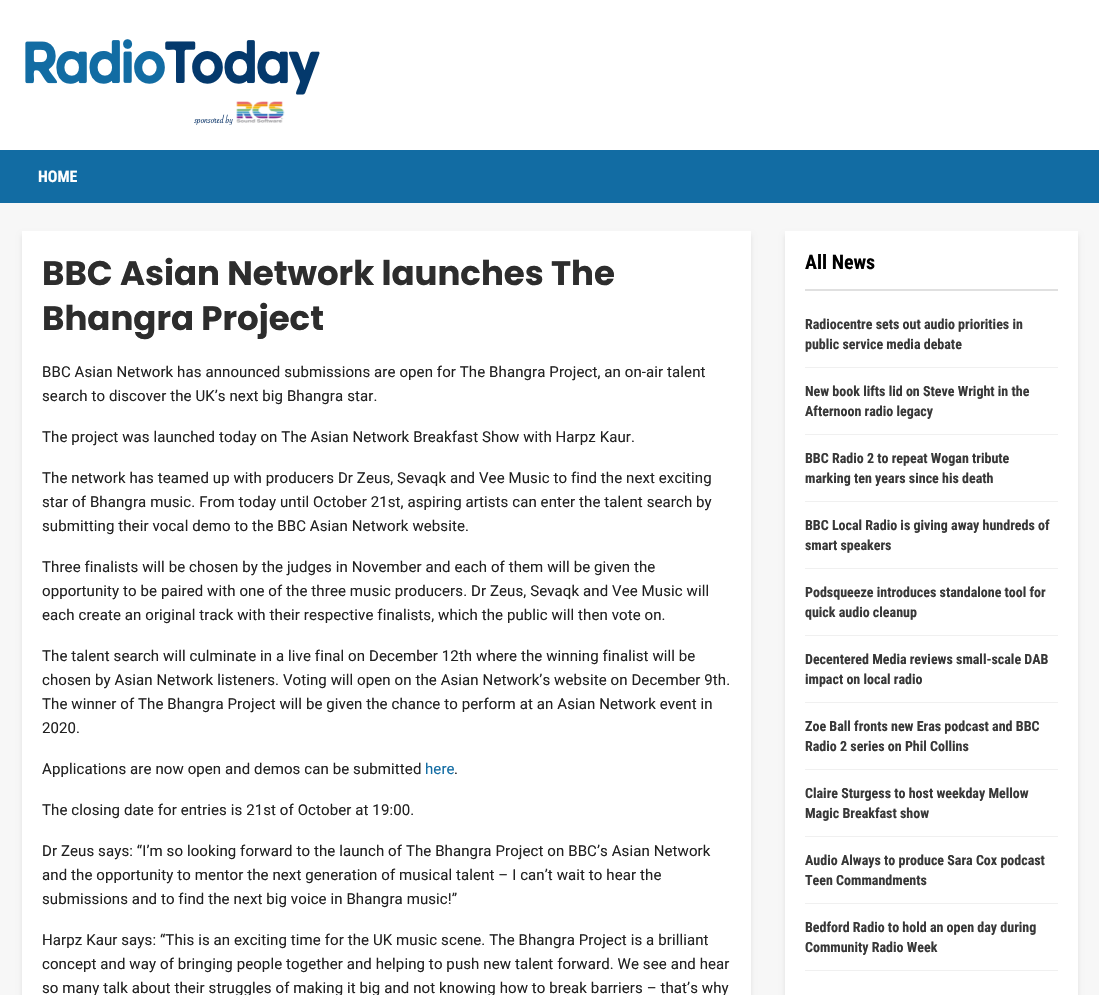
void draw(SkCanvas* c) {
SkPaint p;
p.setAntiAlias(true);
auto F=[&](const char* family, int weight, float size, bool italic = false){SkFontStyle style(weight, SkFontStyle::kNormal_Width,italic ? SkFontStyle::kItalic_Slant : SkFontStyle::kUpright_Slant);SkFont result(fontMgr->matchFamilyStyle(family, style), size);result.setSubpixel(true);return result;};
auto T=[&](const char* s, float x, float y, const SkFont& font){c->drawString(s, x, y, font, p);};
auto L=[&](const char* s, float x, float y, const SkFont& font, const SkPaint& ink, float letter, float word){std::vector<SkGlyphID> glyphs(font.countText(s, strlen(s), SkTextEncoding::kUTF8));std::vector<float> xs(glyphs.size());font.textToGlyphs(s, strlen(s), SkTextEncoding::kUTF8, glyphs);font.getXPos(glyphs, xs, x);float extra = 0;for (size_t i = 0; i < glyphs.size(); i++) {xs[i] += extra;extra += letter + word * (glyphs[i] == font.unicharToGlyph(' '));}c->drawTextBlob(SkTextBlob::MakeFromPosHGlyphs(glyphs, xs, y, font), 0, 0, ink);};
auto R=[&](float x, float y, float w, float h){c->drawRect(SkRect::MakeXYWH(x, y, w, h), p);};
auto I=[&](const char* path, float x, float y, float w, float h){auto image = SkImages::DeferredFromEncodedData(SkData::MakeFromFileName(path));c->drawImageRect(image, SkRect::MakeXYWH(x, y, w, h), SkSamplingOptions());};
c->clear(0xfff7f7f7);
p.setColor(0xffffffff);
R(0,0,1099,150);
I("1.png",25,39,295,86);
p.setColor(0xff126ca3);
R(0,150,1099,53);
auto f1 = F("Roboto Condensed",700,16);
p.setColor(0xffffffff);
T("HOME",38,182,f1);
p.setColor(0x17000000);
p.setMaskFilter(SkMaskFilter::MakeBlur(kNormal_SkBlurStyle, 2.5));
c->drawRect(SkRect::MakeXYWH(22,235,729,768),p);
p.setMaskFilter(nullptr);
p.setColor(0xffffffff);
R(22,231,729,764);
auto f2 = F("Poppins",700,34);
p.setColor(0xff2d2d2d);
T("BBC Asian Network launches The",42,285,f2);
T("Bhangra Project",42,330,f2);
auto f3 = F("Roboto",400,15);
p.setColor(0xff222222);
L("BBC Asian Network has announced submissions are open for The Bhangra Project, an on-air talent",42,377,f3,p,.1,0);
L("search to discover the UK’s next big Bhangra star.",42,401,f3,p,.1,0);
L("The project was launched today on The Asian Network Breakfast Show with Harpz Kaur.",42,442,f3,p,.1,0);
L("The network has teamed up with producers Dr Zeus, Sevaqk and Vee Music to find the next exciting",42,483,f3,p,.1,0);
L("star of Bhangra music. From today until October 21st, aspiring artists can enter the talent search by",42,507,f3,p,.1,0);
L("submitting their vocal demo to the BBC Asian Network website.",42,531,f3,p,.1,0);
L("Three finalists will be chosen by the judges in November and each of them will be given the",42,572,f3,p,.1,0);
L("opportunity to be paired with one of the three music producers. Dr Zeus, Sevaqk and Vee Music will",42,596,f3,p,.1,0);
L("each create an original track with their respective finalists, which the public will then vote on.",42,620,f3,p,.1,0);
L("The talent search will culminate in a live final on December 12th where the winning finalist will be",42,661,f3,p,.1,0);
L("chosen by Asian Network listeners. Voting will open on the Asian Network’s website on December 9th.",42,685,f3,p,.1,0);
L("The winner of The Bhangra Project will be given the chance to perform at an Asian Network event in",42,709,f3,p,.1,0);
L("2020.",42,733,f3,p,.1,0);
L("Applications are now open and demos can be submitted",42,774,f3,p,.1,0);
p.setColor(0xff126ca3);
L("here",425,774,f3,p,.1,0);
p.setColor(0xff222222);
L(".",454,774,f3,p,.1,0);
L("The closing date for entries is 21st of October at 19:00.",42,815,f3,p,.1,0);
L("Dr Zeus says: “I’m so looking forward to the launch of The Bhangra Project on BBC’s Asian Network",42,856,f3,p,.1,0);
L("and the opportunity to mentor the next generation of musical talent – I can’t wait to hear the",42,880,f3,p,.1,0);
L("submissions and to find the next big voice in Bhangra music!”",42,904,f3,p,.1,0);
L("Harpz Kaur says: “This is an exciting time for the UK music scene. The Bhangra Project is a brilliant",42,945,f3,p,.1,0);
L("concept and way of bringing people together and helping to push new talent forward. We see and hear",42,969,f3,p,.1,0);
L("so many talk about their struggles of making it big and not knowing how to break barriers – that’s why",42,993,f3,p,.1,0);
p.setColor(0x17000000);
p.setMaskFilter(SkMaskFilter::MakeBlur(kNormal_SkBlurStyle, 2.5));
c->drawRect(SkRect::MakeXYWH(785,235,293,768),p);
p.setMaskFilter(nullptr);
p.setColor(0xffffffff);
R(785,231,293,764);
auto f4 = F("Roboto Condensed",700,20);
p.setColor(0xff000000);
T("All News",805,269,f4);
p.setColor(0xffe0e0e0);
R(805,289,253,2);
p.setColor(0xfff0f0f0);
R(805,367,253,1);
auto f5 = F("Roboto Condensed",700,14);
p.setColor(0xff383838);
T("Radiocentre sets out audio priorities in",805,329,f5);
T("public service media debate",805,349,f5);
p.setColor(0xfff0f0f0);
R(805,434,253,1);
p.setColor(0xff383838);
T("New book lifts lid on Steve Wright in the",805,396,f5);
T("Afternoon radio legacy",805,416,f5);
p.setColor(0xfff0f0f0);
R(805,501,253,1);
p.setColor(0xff383838);
T("BBC Radio 2 to repeat Wogan tribute",805,463,f5);
T("marking ten years since his death",805,483,f5);
p.setColor(0xfff0f0f0);
R(805,568,253,1);
p.setColor(0xff383838);
T("BBC Local Radio is giving away hundreds of",805,530,f5);
T("smart speakers",805,550,f5);
p.setColor(0xfff0f0f0);
R(805,635,253,1);
p.setColor(0xff383838);
T("Podsqueeze introduces standalone tool for",805,597,f5);
T("quick audio cleanup",805,617,f5);
p.setColor(0xfff0f0f0);
R(805,702,253,1);
p.setColor(0xff383838);
T("Decentered Media reviews small-scale DAB",805,664,f5);
T("impact on local radio",805,684,f5);
p.setColor(0xfff0f0f0);
R(805,769,253,1);
p.setColor(0xff383838);
T("Zoe Ball fronts new Eras podcast and BBC",805,731,f5);
T("Radio 2 series on Phil Collins",805,751,f5);
p.setColor(0xfff0f0f0);
R(805,836,253,1);
p.setColor(0xff383838);
T("Claire Sturgess to host weekday Mellow",805,798,f5);
T("Magic Breakfast show",805,818,f5);
p.setColor(0xfff0f0f0);
R(805,903,253,1);
p.setColor(0xff383838);
T("Audio Always to produce Sara Cox podcast",805,865,f5);
T("Teen Commandments",805,885,f5);
p.setColor(0xfff0f0f0);
R(805,970,253,1);
p.setColor(0xff383838);
T("Bedford Radio to hold an open day during",805,932,f5);
T("Community Radio Week",805,952,f5);
}
